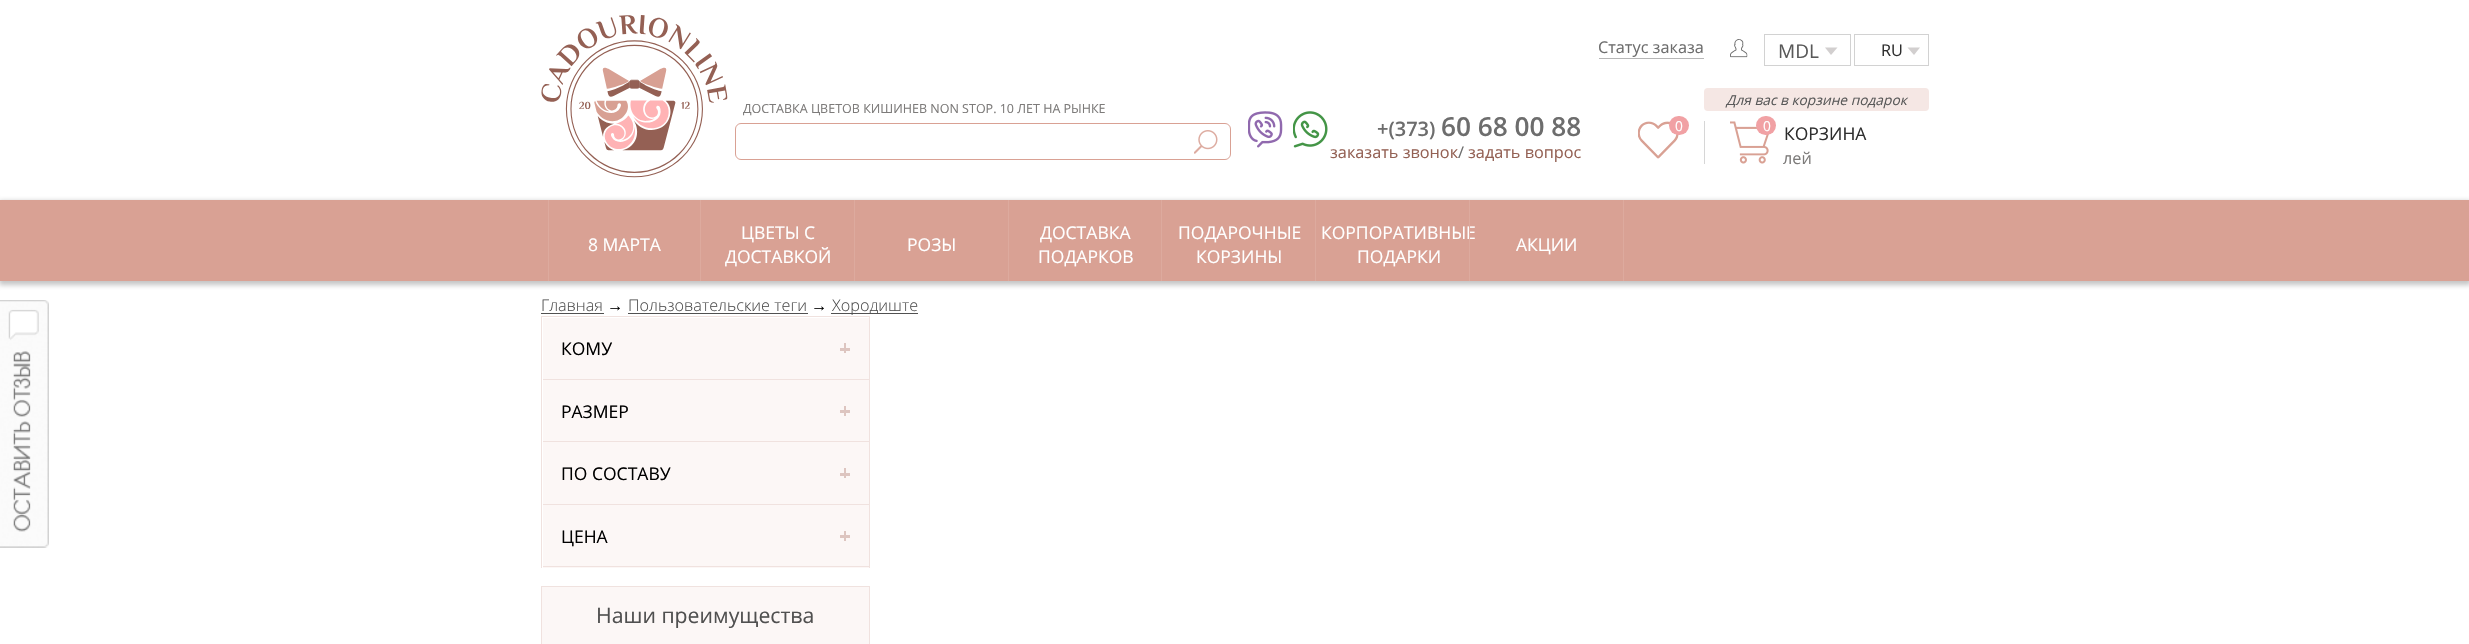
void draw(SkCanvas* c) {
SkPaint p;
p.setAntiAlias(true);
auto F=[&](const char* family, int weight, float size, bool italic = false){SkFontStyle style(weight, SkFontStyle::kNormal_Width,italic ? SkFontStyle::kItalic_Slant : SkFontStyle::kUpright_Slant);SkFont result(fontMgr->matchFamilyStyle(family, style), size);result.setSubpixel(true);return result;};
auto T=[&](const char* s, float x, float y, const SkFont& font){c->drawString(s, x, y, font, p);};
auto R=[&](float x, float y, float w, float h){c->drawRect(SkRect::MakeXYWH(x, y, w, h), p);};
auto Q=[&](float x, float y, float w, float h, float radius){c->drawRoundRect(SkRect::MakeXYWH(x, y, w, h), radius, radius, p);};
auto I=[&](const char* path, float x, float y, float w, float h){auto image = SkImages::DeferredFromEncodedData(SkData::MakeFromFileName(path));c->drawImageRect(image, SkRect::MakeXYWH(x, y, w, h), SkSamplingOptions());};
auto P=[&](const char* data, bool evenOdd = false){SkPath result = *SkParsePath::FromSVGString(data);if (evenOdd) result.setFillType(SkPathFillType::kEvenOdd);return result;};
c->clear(0xffffffff);
I("1.png",541,15,187,163);
p.setStroke(true);
p.setStrokeWidth(1);
p.setColor(0xffd9a194);
c->drawRoundRect(SkRect::MakeXYWH(735.5,123.5,495,36),5.5,5.5,p);
auto f1 = F("Open Sans",400,12.5);
p.setStroke(false);
p.setColor(0xff7d7b7a);
T("ДОСТАВКА ЦВЕТОВ КИШИНЕВ NON STOP. 10 ЛЕТ НА РЫНКЕ",743,113,f1);
I("2.png",1194,130,24,24);
auto f2 = F("Open Sans",400,16.25);
p.setColor(0xff6d6d6d);
T("Статус заказа",1598,53,f2);
p.setColor(0xffb6b6b6);
R(1599,58,105,1);
I("3.png",1730,39,18,19);
p.setStroke(true);
p.setColor(0xffd2d2d2);
c->drawRect(SkRect::MakeXYWH(1764.5,34.5,86,31),p);
auto f3 = F("Open Sans",400,19);
p.setStroke(false);
p.setColor(0xff595959);
T("MDL",1778,58,f3);
p.setColor(0xffd2cfcf);
c->drawPath(P("M1825 47.5h12.5l-6.5 7.5z"),p);
p.setStroke(true);
p.setColor(0xffd2d2d2);
c->drawRect(SkRect::MakeXYWH(1854.5,34.5,74,31),p);
p.setStroke(false);
p.setColor(0xff2e2e2e);
T("RU",1881,56,f2);
p.setColor(0xffd2cfcf);
c->drawPath(P("M1907.5 47.5h12.5l-6 7.5z"),p);
I("4.png",1248,111,35,37);
I("5.png",1293,111,35,37);
auto f4 = F("Open Sans",600,20);
p.setColor(0xff6d6d6d);
T("+(373)",1377,136,f4);
auto f5 = F("Open Sans",600,26.25);
T("60 68 00 88",1441,136,f5);
p.setColor(0xff946154);
T("заказать звонок",1330,158,f2);
p.setColor(0xff6d6d6d);
T("/",1458,158,f2);
p.setColor(0xff946154);
T("задать вопрос",1468,158,f2);
p.setColor(0xffd6d6d6);
R(1704,121,1,43);
I("6.png",1638,121,41,38);
p.setColor(0xfff1a1a4);
Q(1669,116,20,19,9.5);
auto f6 = F("Open Sans",400,13.75);
p.setColor(0xffffffff);
T("0",1675,131,f6);
p.setColor(0xfff5e7e4);
Q(1704,88,225,23,4);
auto f7 = F("Open Sans",400,13.75,true);
p.setColor(0xff595959);
T("Для вас в корзине подарок",1726,105,f7);
I("7.png",1730,121,39,43);
p.setColor(0xfff1a1a4);
Q(1756,116,20,19,9.5);
p.setColor(0xffffffff);
T("0",1763,131,f6);
auto f8 = F("Open Sans",400,17.5);
p.setColor(0xff2e2e2e);
T("КОРЗИНА",1784,140,f8);
p.setColor(0xff7d7b7a);
T("лей",1783,164,f2);
I("8.png",0,300,49,248);
p.setColor(0x999c9c9c);
p.setMaskFilter(SkMaskFilter::MakeBlur(kNormal_SkBlurStyle, 2.5));
c->drawRect(SkRect::MakeXYWH(-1,201,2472,84),p);
p.setMaskFilter(nullptr);
p.setColor(0xffd9a194);
R(0,200,2469,81);
p.setColor(0xffddaa9e);
R(548,200,1,81);
p.setColor(0xffffffff);
T("8 МАРТА",588,251,f8);
p.setColor(0xffddaa9e);
R(700,200,1,81);
p.setColor(0xffffffff);
T("ЦВЕТЫ С",741,239,f8);
T("ДОСТАВКОЙ",725,263,f8);
p.setColor(0xffddaa9e);
R(854,200,1,81);
p.setColor(0xffffffff);
T("РОЗЫ",907,251,f8);
p.setColor(0xffddaa9e);
R(1008,200,1,81);
p.setColor(0xffffffff);
T("ДОСТАВКА",1040,239,f8);
T("ПОДАРКОВ",1038,263,f8);
p.setColor(0xffddaa9e);
R(1161,200,1,81);
p.setColor(0xffffffff);
T("ПОДАРОЧНЫЕ",1178,239,f8);
T("КОРЗИНЫ",1196,263,f8);
p.setColor(0xffddaa9e);
R(1315,200,1,81);
p.setColor(0xffffffff);
T("КОРПОРАТИВНЫЕ",1321,239,f8);
p.setColor(0xffddaa9e);
R(1469,200,1,81);
p.setColor(0xffffffff);
T("ПОДАРКИ",1357,263,f8);
T("АКЦИИ",1516,251,f8);
p.setColor(0xffddaa9e);
R(1623,200,1,81);
auto f9 = F("Open Sans",300,16.25);
p.setColor(0xff505050);
T("Главная",541,311,f9);
p.setColor(0xff515151);
R(541,313,63,1);
auto f10 = F("Liberation Serif",400,16.25);
p.setColor(0xff000000);
T("→",607,311,f10);
p.setColor(0xff505050);
T("Пользовательские теги",628,311,f9);
p.setColor(0xff515151);
R(628,313,180,1);
p.setColor(0xff000000);
T("→",811,311,f10);
p.setColor(0xff515151);
R(831,313,87,1);
p.setColor(0xff505050);
T("Хородиште",832,311,f9);
p.setColor(0xfff0e2df);
R(541,316,329,1);
R(869,316,1,252);
R(541,316,1,252);
p.setColor(0xfffcf7f6);
R(543,318,326,61);
p.setColor(0xfff0e2df);
R(543,379,326,1);
p.setColor(0xff000000);
T("КОМУ",561,355,f8);
p.setColor(0xffddc5c0);
R(840,348,10,3);
R(844,343,2,10);
p.setColor(0xfffcf7f6);
R(543,380,326,124);
p.setColor(0xfff0e2df);
R(543,441,326,1);
p.setColor(0xff000000);
T("РАЗМЕР",561,418,f8);
p.setColor(0xffddc5c0);
R(840,410,10,3);
R(844,406,2,10);
p.setColor(0xfff0e2df);
R(543,504,326,1);
p.setColor(0xff000000);
T("ПО СОСТАВУ",561,480,f8);
p.setColor(0xffddc5c0);
R(840,473,10,3);
R(844,468,2,10);
p.setColor(0xfffcf7f6);
R(543,505,326,63);
p.setColor(0xfff0e2df);
R(543,566,326,1);
p.setColor(0xff000000);
T("ЦЕНА",561,543,f8);
p.setColor(0xffddc5c0);
R(840,535,10,3);
R(844,531,2,10);
p.setColor(0xfffcf7f6);
c->drawRect(SkRect::MakeXYWH(541.5,586.5,328,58),p);
p.setStroke(true);
p.setColor(0xfff0e2df);
c->drawRect(SkRect::MakeXYWH(541.5,586.5,328,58),p);
auto f11 = F("Open Sans",400,21.25);
p.setStroke(false);
p.setColor(0xff505050);
T("Наши преимущества",596,623,f11);
}
